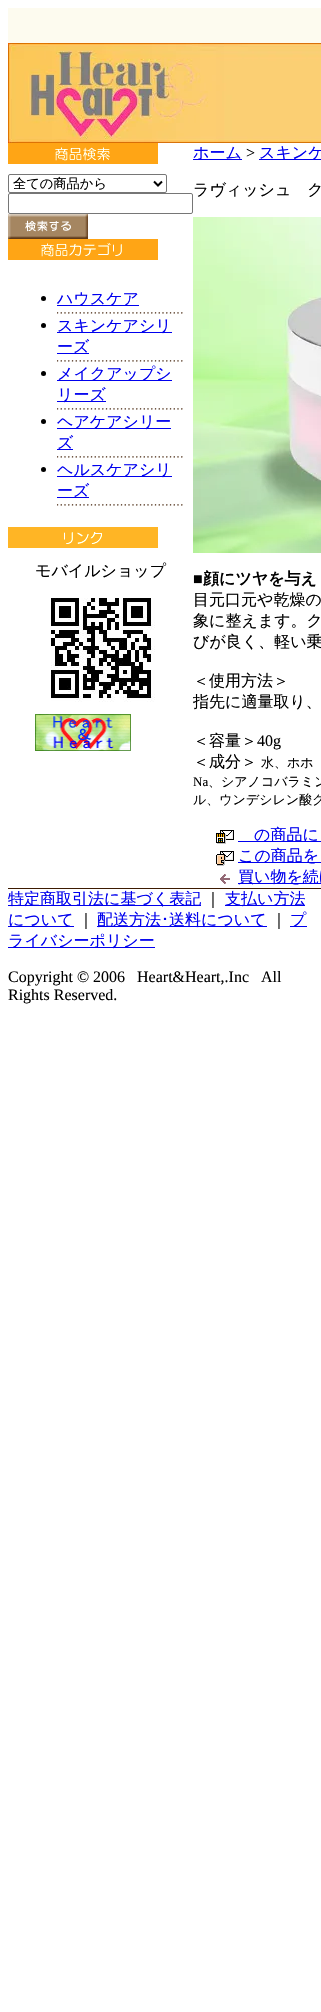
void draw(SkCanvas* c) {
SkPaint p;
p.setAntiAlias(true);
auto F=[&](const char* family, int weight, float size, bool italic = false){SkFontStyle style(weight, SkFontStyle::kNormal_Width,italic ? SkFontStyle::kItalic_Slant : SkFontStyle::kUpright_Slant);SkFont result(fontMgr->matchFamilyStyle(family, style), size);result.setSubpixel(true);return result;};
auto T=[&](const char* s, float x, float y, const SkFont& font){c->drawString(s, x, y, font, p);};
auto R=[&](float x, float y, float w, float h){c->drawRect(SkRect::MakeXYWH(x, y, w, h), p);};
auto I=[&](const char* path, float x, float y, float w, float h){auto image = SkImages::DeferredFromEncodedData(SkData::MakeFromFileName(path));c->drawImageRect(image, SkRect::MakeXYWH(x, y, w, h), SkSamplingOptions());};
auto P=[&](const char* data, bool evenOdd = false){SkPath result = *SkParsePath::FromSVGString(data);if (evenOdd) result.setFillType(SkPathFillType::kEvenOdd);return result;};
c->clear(0xffffffff);
p.setColor(0xfffdfbef);
R(8,8,313,35);
I("1.png",8,43,313,100);
p.setColor(0xff3c1a01);
R(8,888,313,1);
I("2.png",8,143,150,21);
p.setStroke(true);
p.setStrokeWidth(1);
p.setColor(0xff767676);
c->drawRoundRect(SkRect::MakeXYWH(8.5,174.5,158,18),1.5,1.5,p);
p.setStrokeWidth(2);
p.setColor(0xff000000);
c->drawPath(P("M154 181.5l4 4l4-4"),p);
auto f1 = F("WenQuanYi Zen Hei",500,13.25);
p.setStroke(false);
T("全ての商品から",13,188,f1);
p.setStroke(true);
p.setStrokeWidth(1);
p.setColor(0xff767676);
c->drawRoundRect(SkRect::MakeXYWH(8.5,193.5,184,20),1.5,1.5,p);
I("3.png",8,214,80,25);
I("4.png",8,239,150,21);
p.setStroke(false);
p.setColor(0xff000000);
c->drawCircle(43.5,298.5,2.5,p);
p.setColor(0xff0000ee);
R(57,305,82,1);
auto f2 = F("WenQuanYi Zen Hei",500,16);
T("ハウスケア",57,304,f2);
I("5.png",57,312,126,2);
p.setColor(0xff000000);
c->drawCircle(43.5,325.5,2.5,p);
p.setColor(0xff0000ee);
R(57,332,115,1);
T("スキンケアシリ",57,331,f2);
R(57,353,32,1);
T("ーズ",57,352,f2);
I("5.png",57,360,126,2);
p.setColor(0xff000000);
c->drawCircle(43.5,373.5,2.5,p);
p.setColor(0xff0000ee);
R(57,380,115,1);
T("メイクアップシ",57,379,f2);
R(57,401,49,1);
T("リーズ",57,400,f2);
I("5.png",57,408,126,2);
p.setColor(0xff000000);
c->drawCircle(43.5,421.5,2.5,p);
p.setColor(0xff0000ee);
R(57,428,114,1);
T("ヘアケアシリー",57,427,f2);
R(57,449,16,1);
T("ズ",57,448,f2);
I("5.png",57,456,126,2);
p.setColor(0xff000000);
c->drawCircle(43.5,469.5,2.5,p);
p.setColor(0xff0000ee);
R(57,476,115,1);
T("ヘルスケアシリ",57,475,f2);
R(57,497,32,1);
T("ーズ",57,496,f2);
I("5.png",57,504,126,2);
I("6.png",8,527,150,21);
p.setColor(0xff000000);
T("モバイルショップ",35,576,f2);
I("7.png",51,598,104,104);
I("8.png",35,714,96,37);
p.setColor(0xff0000ee);
R(193,159,49,1);
T("ホーム",193,158,f2);
auto f3 = F("Liberation Serif",400,16);
p.setColor(0xff000000);
T(">",246,158,f3);
p.setColor(0xff0000ee);
R(259,159,62,1);
T("スキンケ",259,158,f2);
p.setColor(0xff000000);
T("ラヴィッシュ　ク",193,195,f2);
I("9.png",193,217,128,336);
auto f4 = F("Liberation Serif",700,16);
T("■",193,584,f4);
auto f5 = F("WenQuanYi Zen Hei",700,16);
T("顔にツヤを与え",203,584,f5);
T("目元口元や乾燥の",193,605,f2);
T("象に整えます。ク",193,626,f2);
T("びが良く、軽い乗",193,647,f2);
T("＜使用方法＞",193,686,f2);
T("指先に適量取り、",193,707,f2);
T("＜容量＞",193,746,f2);
T("40g",257,746,f3);
T("＜成分＞",193,767,f2);
auto f6 = F("WenQuanYi Zen Hei",500,13);
T("水、ホホ",261,767,f6);
auto f7 = F("Liberation Serif",400,13);
T("Na",193,786,f7);
T("、シアノコバラミン",208,786,f6);
T("ル、ウンデシレン酸グ",193,804,f6);
I("10.png",216,830,18,14);
p.setColor(0xff0000ee);
R(238,841,83,1);
T("の商品に",254,840,f2);
I("11.png",216,851,18,15);
R(238,862,83,1);
T("この商品を",238,861,f2);
I("12.png",220,874,10,10);
R(238,883,83,1);
T("買い物を続け",238,882,f2);
R(8,905,193,1);
T("特定商取引法に基づく表記",8,904,f2);
p.setColor(0xff000000);
T("｜",205,904,f2);
p.setColor(0xff0000ee);
R(225,905,80,1);
T("支払い方法",225,904,f2);
R(8,926,66,1);
T("について",8,925,f2);
p.setColor(0xff000000);
T("｜",78,925,f2);
p.setColor(0xff0000ee);
R(97,926,170,1);
T("配送方法",97,925,f2);
auto f8 = F("IPAPGothic",400,16);
T("･",161,925,f8);
T("送料について",169,925,f2);
p.setColor(0xff000000);
T("｜",271,925,f2);
p.setColor(0xff0000ee);
R(290,926,17,1);
T("プ",290,925,f2);
R(8,947,147,1);
T("ライバシーポリシー",8,946,f2);
p.setColor(0xff000000);
T("Copyright © 2006   Heart&Heart,.Inc   All",8,982,f3);
T("Rights Reserved.",8,1000,f3);
}
